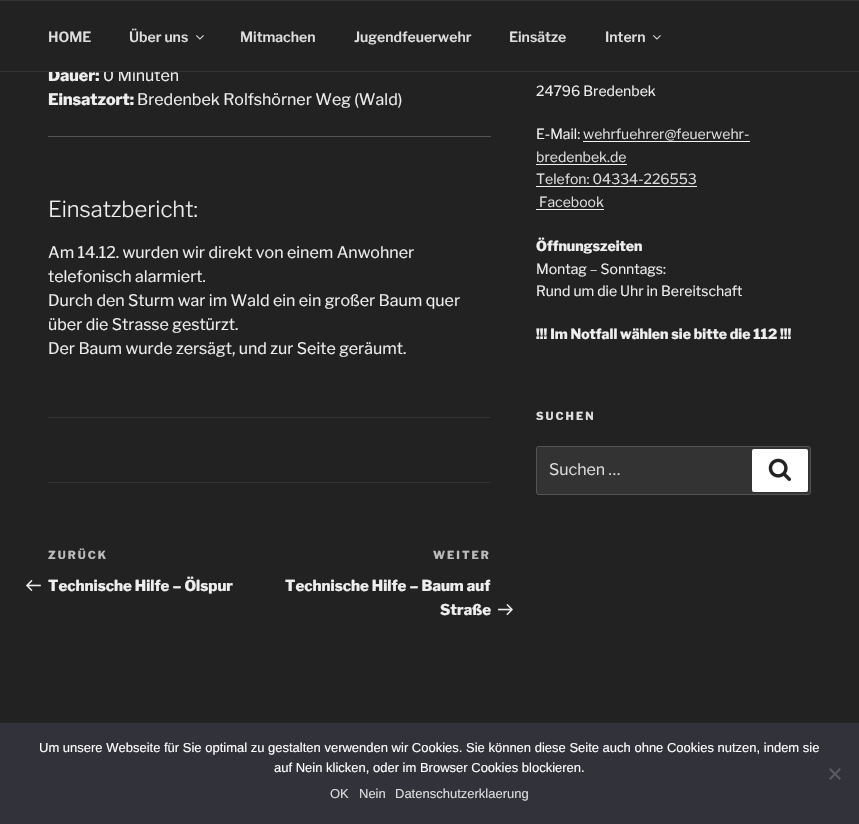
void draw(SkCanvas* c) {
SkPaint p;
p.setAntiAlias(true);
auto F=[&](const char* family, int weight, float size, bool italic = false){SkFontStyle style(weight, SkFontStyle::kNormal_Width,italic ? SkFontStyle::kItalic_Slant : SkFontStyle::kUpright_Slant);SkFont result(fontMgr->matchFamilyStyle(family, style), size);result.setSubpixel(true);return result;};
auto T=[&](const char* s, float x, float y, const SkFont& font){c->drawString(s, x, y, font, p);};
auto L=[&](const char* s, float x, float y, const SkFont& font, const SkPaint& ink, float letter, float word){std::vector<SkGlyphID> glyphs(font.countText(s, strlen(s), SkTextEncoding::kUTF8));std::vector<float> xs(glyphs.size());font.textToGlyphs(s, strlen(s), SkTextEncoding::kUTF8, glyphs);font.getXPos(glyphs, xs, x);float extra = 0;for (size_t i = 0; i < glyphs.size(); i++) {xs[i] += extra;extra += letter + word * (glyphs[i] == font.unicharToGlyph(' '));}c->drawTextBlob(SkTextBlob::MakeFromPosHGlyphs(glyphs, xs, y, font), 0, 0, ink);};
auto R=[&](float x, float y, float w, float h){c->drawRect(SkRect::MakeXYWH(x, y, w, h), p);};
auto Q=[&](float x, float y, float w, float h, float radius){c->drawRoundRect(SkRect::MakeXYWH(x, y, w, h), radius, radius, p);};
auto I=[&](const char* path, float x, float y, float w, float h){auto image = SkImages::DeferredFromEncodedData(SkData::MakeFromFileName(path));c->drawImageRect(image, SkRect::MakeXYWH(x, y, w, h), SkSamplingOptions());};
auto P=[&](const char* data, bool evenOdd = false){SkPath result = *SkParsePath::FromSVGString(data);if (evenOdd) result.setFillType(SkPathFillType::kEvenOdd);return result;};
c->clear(0xff222222);
auto f1 = F("Libre Franklin",100,16);
p.setColor(0xffeeeeee);
T("Dauer:",48,81,f1);
auto f2 = F("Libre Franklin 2",100,16);
T("0 Minuten",103,81,f2);
p.setColor(0xff222222);
R(48,69,110,2);
p.setColor(0xff333333);
R(0,0,859,1);
R(0,71,859,1);
auto f3 = F("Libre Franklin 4",100,14);
p.setColor(0xffdddddd);
T("HOME",48,42,f3);
T("Über uns",129,42,f3);
I("1.png",196,35,8,5);
T("Mitmachen",240,42,f3);
T("Jugendfeuerwehr",354,42,f3);
T("Einsätze",509,42,f3);
T("Intern",605,42,f3);
I("1.png",653,35,8,5);
p.setColor(0xffeeeeee);
T("Einsatzort:",48,105,f1);
T("Bredenbek Rolfshörner Weg (Wald)",137,105,f2);
p.setColor(0xff555555);
R(48,136,443,1);
auto f4 = F("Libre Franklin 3",100,22);
p.setColor(0xffeeeeee);
T("Einsatzbericht:",48,217,f4);
T("Am 14.12. wurden wir direkt von einem Anwohner",48,258,f2);
T("telefonisch alarmiert.",48,282,f2);
T("Durch den Sturm war im Wald ein ein großer Baum quer",48,306,f2);
T("über die Strasse gestürzt.",48,330,f2);
T("Der Baum wurde zersägt, und zur Seite geräumt.",48,354,f2);
p.setColor(0xff333333);
R(48,417,443,1);
R(48,482,443,1);
auto f5 = F("Libre Franklin",100,11);
p.setColor(0xffbbbbbb);
L("ZURÜCK",48,559,f5,p,2,0);
I("2.png",26,580,15,11);
auto f6 = F("Libre Franklin",100,15);
p.setColor(0xffeeeeee);
T("Technische Hilfe – Ölspur",48,591,f6);
p.setColor(0xffbbbbbb);
L("WEITER",433,559,f5,p,2,0);
p.setColor(0xffeeeeee);
T("Technische Hilfe – Baum auf",285,591,f6);
T("Straße",440,615,f6);
I("3.png",498,604,15,12);
auto f7 = F("Libre Franklin 2",100,14);
T("24796 Bredenbek",536,96,f7);
T("E-Mail:",536,139,f7);
p.setColor(0xffdddddd);
T("wehrfuehrer@feuerwehr-",583,139,f7);
p.setColor(0xfff0f0f0);
R(583,141,167,1);
p.setColor(0xffdddddd);
T("bredenbek.de",536,162,f7);
p.setColor(0xfff0f0f0);
R(536,164,91,1);
p.setColor(0xffdddddd);
T("Telefon: 04334-226553",536,184,f7);
p.setColor(0xfff0f0f0);
R(536,186,161,1);
p.setColor(0xffdddddd);
T("Facebook",539,207,f7);
p.setColor(0xfff0f0f0);
R(536,209,68,1);
auto f8 = F("Libre Franklin",100,14);
p.setColor(0xffeeeeee);
T("Öffnungszeiten",536,251,f8);
T("Montag – Sonntags:",536,274,f7);
T("Rund um die Uhr in Bereitschaft",536,296,f7);
T("!!! Im Notfall wählen sie bitte die 112 !!!",536,339,f8);
p.setColor(0xffdddddd);
L("SUCHEN",536,420,f5,p,2,0);
p.setColor(0xff333333);
c->drawRoundRect(SkRect::MakeXYWH(536.5,446.5,274,48),2.5,2.5,p);
p.setStroke(true);
p.setStrokeWidth(1);
p.setColor(0xff555555);
c->drawRoundRect(SkRect::MakeXYWH(536.5,446.5,274,48),2.5,2.5,p);
p.setStroke(false);
p.setColor(0xffdddddd);
T("Suchen …",549,475,f2);
p.setColor(0xffffffff);
Q(752,449,56,43,2);
I("4.png",768,458,23,23);
p.setColor(0xff32323a);
R(0,723,859,101);
auto f9 = F("Liberation Sans",400,13);
p.setColor(0xffffffff);
T("Um unsere Webseite für Sie optimal zu gestalten verwenden wir Cookies. Sie können diese Seite auch ohne Cookies nutzen, indem sie",39,752,f9);
T("auf Nein klicken, oder im Browser Cookies blockieren.",274,772,f9);
p.setColor(0xff59595d);
c->drawPath(P("M839.5 768l1.5 1.5l-10.5 10.5l-1.5-1.5z"),p);
c->drawPath(P("M829 769.5l1.5-1.5l10.5 10.5l-1.5 1.5z"),p);
p.setColor(0xffdddddd);
T("OK",330,798,f9);
T("Nein",359,798,f9);
T("Datenschutzerklaerung",395,798,f9);
}
